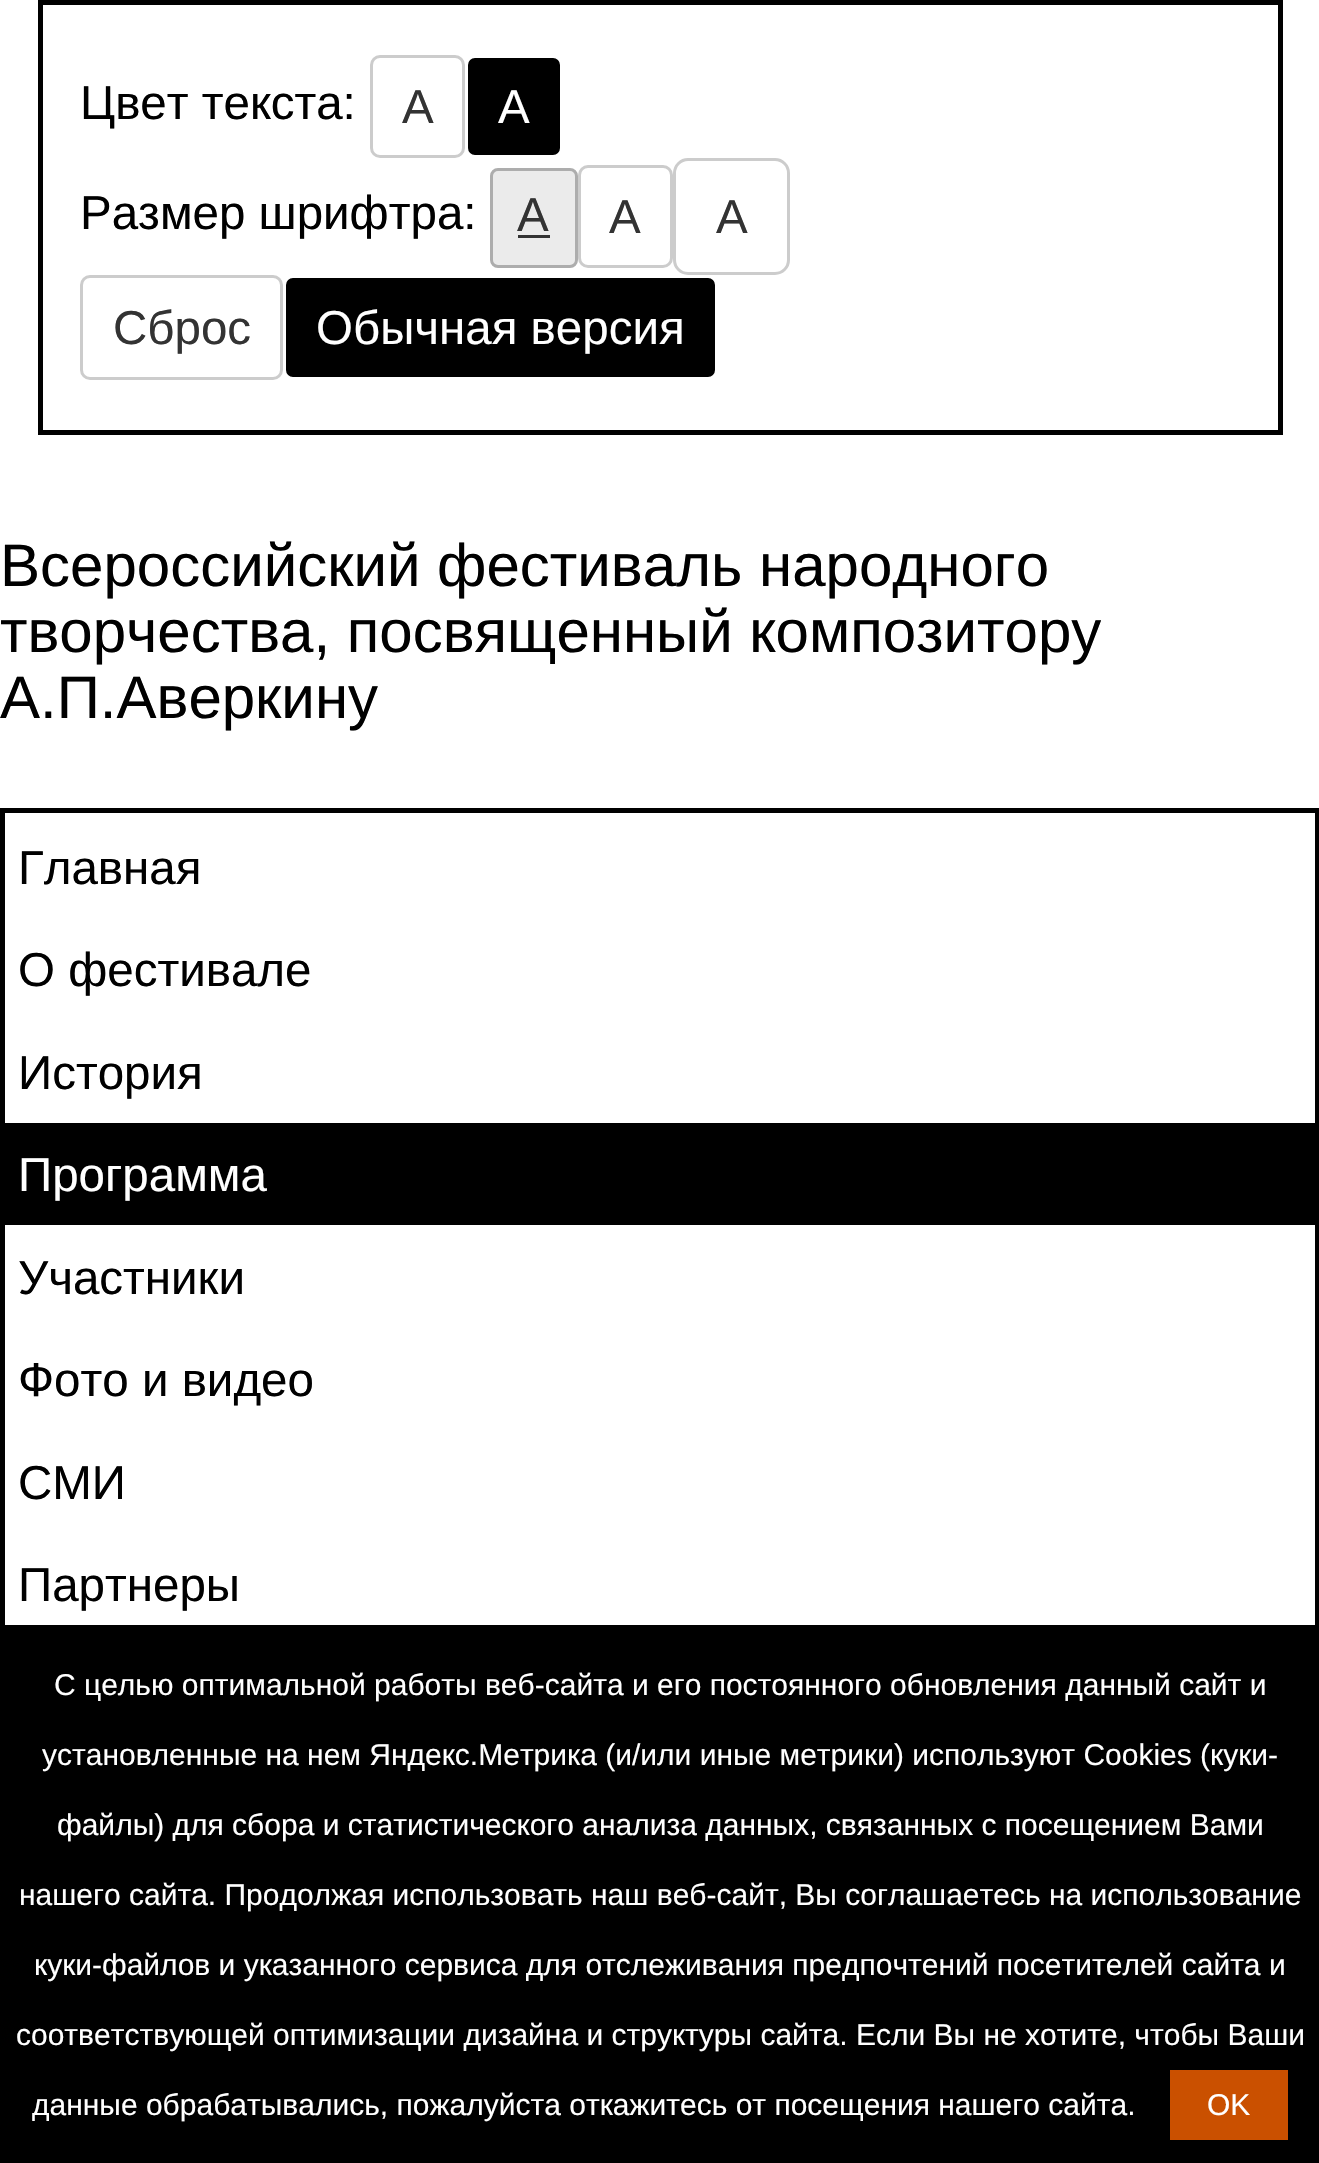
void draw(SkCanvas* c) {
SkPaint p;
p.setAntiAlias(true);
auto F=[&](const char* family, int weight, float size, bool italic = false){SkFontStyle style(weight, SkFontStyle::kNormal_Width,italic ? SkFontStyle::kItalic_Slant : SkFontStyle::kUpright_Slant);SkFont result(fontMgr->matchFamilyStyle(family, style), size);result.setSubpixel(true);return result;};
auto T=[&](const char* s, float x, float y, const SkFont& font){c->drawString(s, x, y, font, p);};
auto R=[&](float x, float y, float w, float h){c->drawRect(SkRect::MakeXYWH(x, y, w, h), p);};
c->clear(0xffffffff);
p.setStroke(true);
p.setStrokeWidth(5);
p.setColor(0xff000000);
c->drawRect(SkRect::MakeXYWH(40.5,2.5,1240,430),p);
auto f1 = F("Liberation Sans",400,47.5);
p.setStroke(false);
T("Цвет текста:",80,119,f1);
p.setStroke(true);
p.setStrokeWidth(3);
p.setColor(0xffcccccc);
c->drawRoundRect(SkRect::MakeXYWH(371.5,56.5,92,100),8.5,8.5,p);
p.setStroke(false);
p.setColor(0xff333333);
T("А",402,123,f1);
p.setColor(0xff000000);
c->drawRoundRect(SkRect::MakeXYWH(466.5,56.5,95,100),8.5,8.5,p);
p.setStroke(true);
p.setColor(0xffffffff);
c->drawRoundRect(SkRect::MakeXYWH(466.5,56.5,95,100),8.5,8.5,p);
p.setStroke(false);
T("А",498,123,f1);
p.setColor(0xff000000);
T("Размер шрифтра:",80,229,f1);
p.setColor(0xffebebeb);
c->drawRoundRect(SkRect::MakeXYWH(491.5,169.5,85,97),6.5,6.5,p);
p.setStroke(true);
p.setColor(0xffadadad);
c->drawRoundRect(SkRect::MakeXYWH(491.5,169.5,85,97),6.5,6.5,p);
p.setStroke(false);
p.setColor(0xff333333);
T("А",517,231,f1);
R(518,235,32,3);
p.setStroke(true);
p.setColor(0xffcccccc);
c->drawRoundRect(SkRect::MakeXYWH(579.5,166.5,92,100),8.5,8.5,p);
p.setStroke(false);
p.setColor(0xff333333);
T("А",609,233,f1);
p.setStroke(true);
p.setColor(0xffcccccc);
c->drawRoundRect(SkRect::MakeXYWH(674.5,159.5,114,114),13.5,13.5,p);
p.setStroke(false);
p.setColor(0xff333333);
T("А",716,233,f1);
p.setStroke(true);
p.setColor(0xffcccccc);
c->drawRoundRect(SkRect::MakeXYWH(81.5,276.5,200,102),8.5,8.5,p);
p.setStroke(false);
p.setColor(0xff333333);
T("Сброс",113,344,f1);
p.setColor(0xff000000);
c->drawRoundRect(SkRect::MakeXYWH(284.5,276.5,432,102),8.5,8.5,p);
p.setStroke(true);
p.setColor(0xffffffff);
c->drawRoundRect(SkRect::MakeXYWH(284.5,276.5,432,102),8.5,8.5,p);
p.setStroke(false);
T("Обычная версия",316,344,f1);
auto f2 = F("Liberation Sans",400,60);
p.setColor(0xff000000);
T("Всероссийский фестиваль народного",0,586,f2);
T("творчества, посвященный композитору",0,652,f2);
T("А.П.Аверкину",0,718,f2);
p.setStroke(true);
p.setStrokeWidth(5);
c->drawRect(SkRect::MakeXYWH(2.5,810.5,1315,1037),p);
p.setStroke(false);
T("Главная",18,884,f1);
T("О фестивале",18,986,f1);
T("История",18,1089,f1);
R(5,1123,1310,102);
p.setColor(0xffffffff);
T("Программа",18,1191,f1);
p.setColor(0xff000000);
T("Участники",18,1294,f1);
T("Фото и видео",18,1396,f1);
T("СМИ",18,1499,f1);
T("Партнеры",18,1601,f1);
R(0,1625,1319,538);
auto f3 = F("Liberation Sans",400,30);
p.setColor(0xffffffff);
T("С целью оптимальной работы веб-сайта и его постоянного обновления данный сайт и",54,1695,f3);
T("установленные на нем Яндекс.Метрика (и/или иные метрики) используют Cookies (куки-",42,1765,f3);
T("файлы) для сбора и статистического анализа данных, связанных с посещением Вами",57,1835,f3);
T("нашего сайта. Продолжая использовать наш веб-сайт, Вы соглашаетесь на использование",19,1905,f3);
T("куки-файлов и указанного сервиса для отслеживания предпочтений посетителей сайта и",34,1975,f3);
T("соответствующей оптимизации дизайна и структуры сайта. Если Вы не хотите, чтобы Ваши",16,2045,f3);
T("данные обрабатывались, пожалуйста откажитесь от посещения нашего сайта.",32,2115,f3);
p.setColor(0xffca5000);
R(1170,2070,118,70);
p.setColor(0xffffffff);
T("OK",1207,2115,f3);
}
